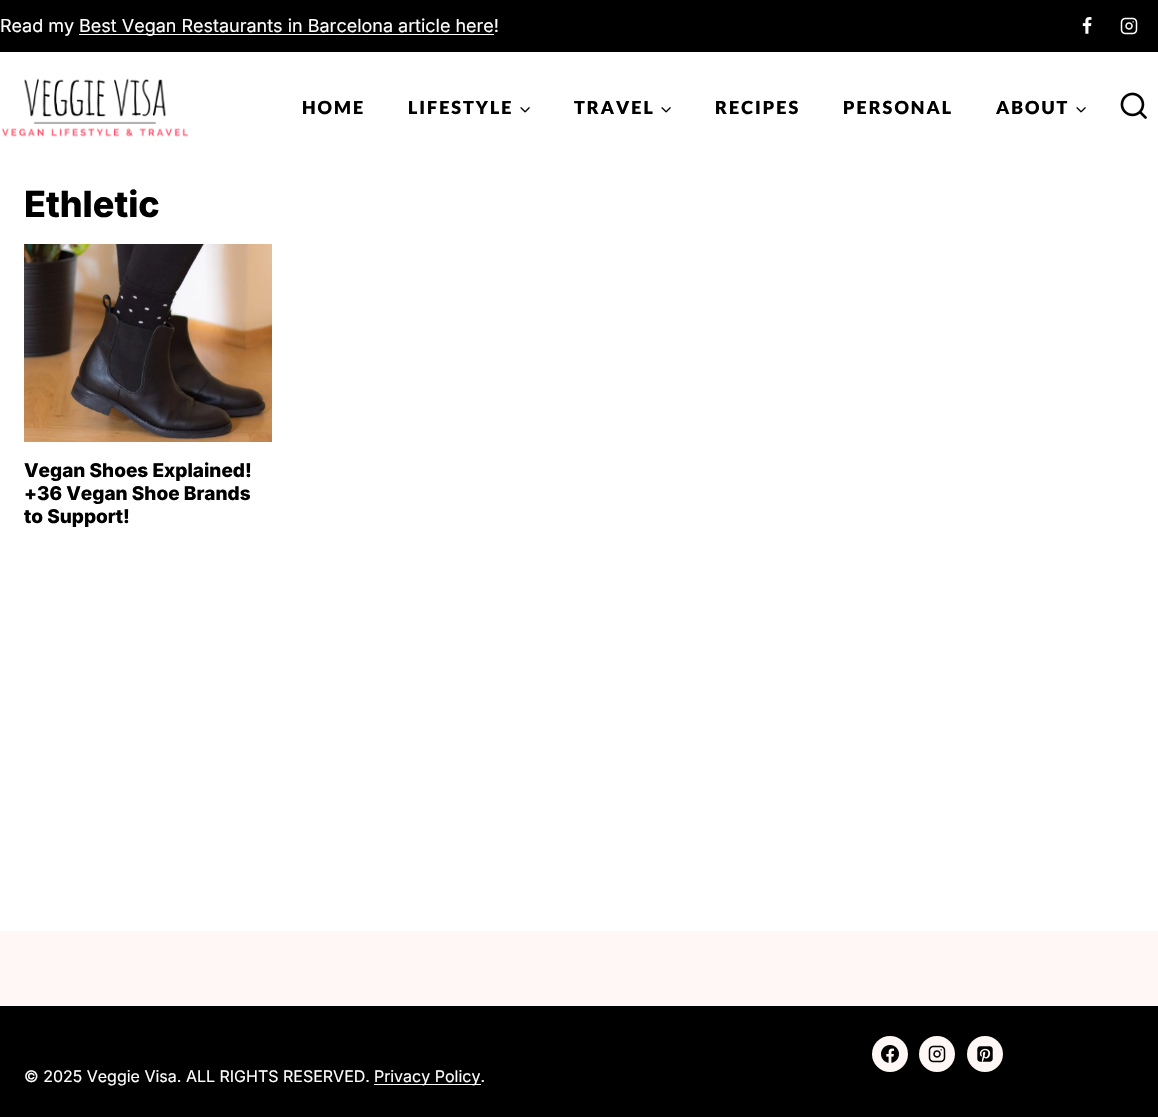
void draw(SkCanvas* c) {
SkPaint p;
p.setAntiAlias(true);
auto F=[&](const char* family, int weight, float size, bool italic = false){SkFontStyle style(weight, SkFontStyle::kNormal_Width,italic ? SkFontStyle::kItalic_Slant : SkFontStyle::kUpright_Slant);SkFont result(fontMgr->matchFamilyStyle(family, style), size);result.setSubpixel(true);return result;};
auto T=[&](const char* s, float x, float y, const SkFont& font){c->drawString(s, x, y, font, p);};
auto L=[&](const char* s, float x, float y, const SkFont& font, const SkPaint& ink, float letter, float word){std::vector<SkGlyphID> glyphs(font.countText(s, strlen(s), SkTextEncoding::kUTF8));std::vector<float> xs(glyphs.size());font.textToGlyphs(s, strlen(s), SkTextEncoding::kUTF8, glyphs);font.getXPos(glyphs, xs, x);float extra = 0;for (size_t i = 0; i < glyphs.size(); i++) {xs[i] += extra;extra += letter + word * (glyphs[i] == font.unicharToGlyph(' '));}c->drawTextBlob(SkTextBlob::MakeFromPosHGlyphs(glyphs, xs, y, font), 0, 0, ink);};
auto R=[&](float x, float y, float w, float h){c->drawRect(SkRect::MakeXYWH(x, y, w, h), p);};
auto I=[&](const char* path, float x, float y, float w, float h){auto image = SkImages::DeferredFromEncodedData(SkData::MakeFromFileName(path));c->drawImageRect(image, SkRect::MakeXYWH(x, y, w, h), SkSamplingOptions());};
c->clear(0xffffffff);
p.setColor(0xff000000);
R(0,0,1158,52);
auto f1 = F("Inter",400,18);
p.setColor(0xffffffff);
T("Read my",0,32,f1);
R(79,34,415,1);
T("Best Vegan Restaurants in Barcelona article here!",79,32,f1);
I("1.png",1082,17,10,17);
I("2.png",1120,17,18,18);
I("3.png",1,78,188,59);
auto f2 = F("Lato",900,18);
p.setColor(0xff000000);
L("HOME",302,114,f2,p,2,0);
L("LIFESTYLE",408,114,f2,p,2,0);
I("4.png",520,107,10,6);
L("TRAVEL",574,114,f2,p,2,0);
I("4.png",661,107,10,6);
L("RECIPES",715,114,f2,p,2,0);
L("PERSONAL",843,114,f2,p,2,0);
L("ABOUT",996,114,f2,p,2,0);
I("4.png",1076,107,10,6);
I("5.png",1120,92,27,27);
auto f3 = F("Inter",800,36);
T("Ethletic",24,217,f3);
I("6.png",24,244,248,198);
auto f4 = F("Inter",800,19);
T("Vegan Shoes Explained!",24,477,f4);
T("+36 Vegan Shoe Brands",24,500,f4);
T("to Support!",24,523,f4);
R(0,1006,1158,111);
p.setColor(0xfffff6f6);
R(0,931,1158,75);
c->drawCircle(890,1054,18,p);
I("7.png",881,1045,18,18);
c->drawCircle(937,1054,18,p);
I("8.png",928,1045,18,18);
c->drawCircle(985,1054,18,p);
I("9.png",977,1046,16,16);
auto f5 = F("Inter",400,16);
p.setColor(0xffffffff);
T("© 2025 Veggie Visa. ALL RIGHTS RESERVED.",24,1082,f5);
R(374,1084,107,1);
T("Privacy Policy.",374,1082,f5);
}
